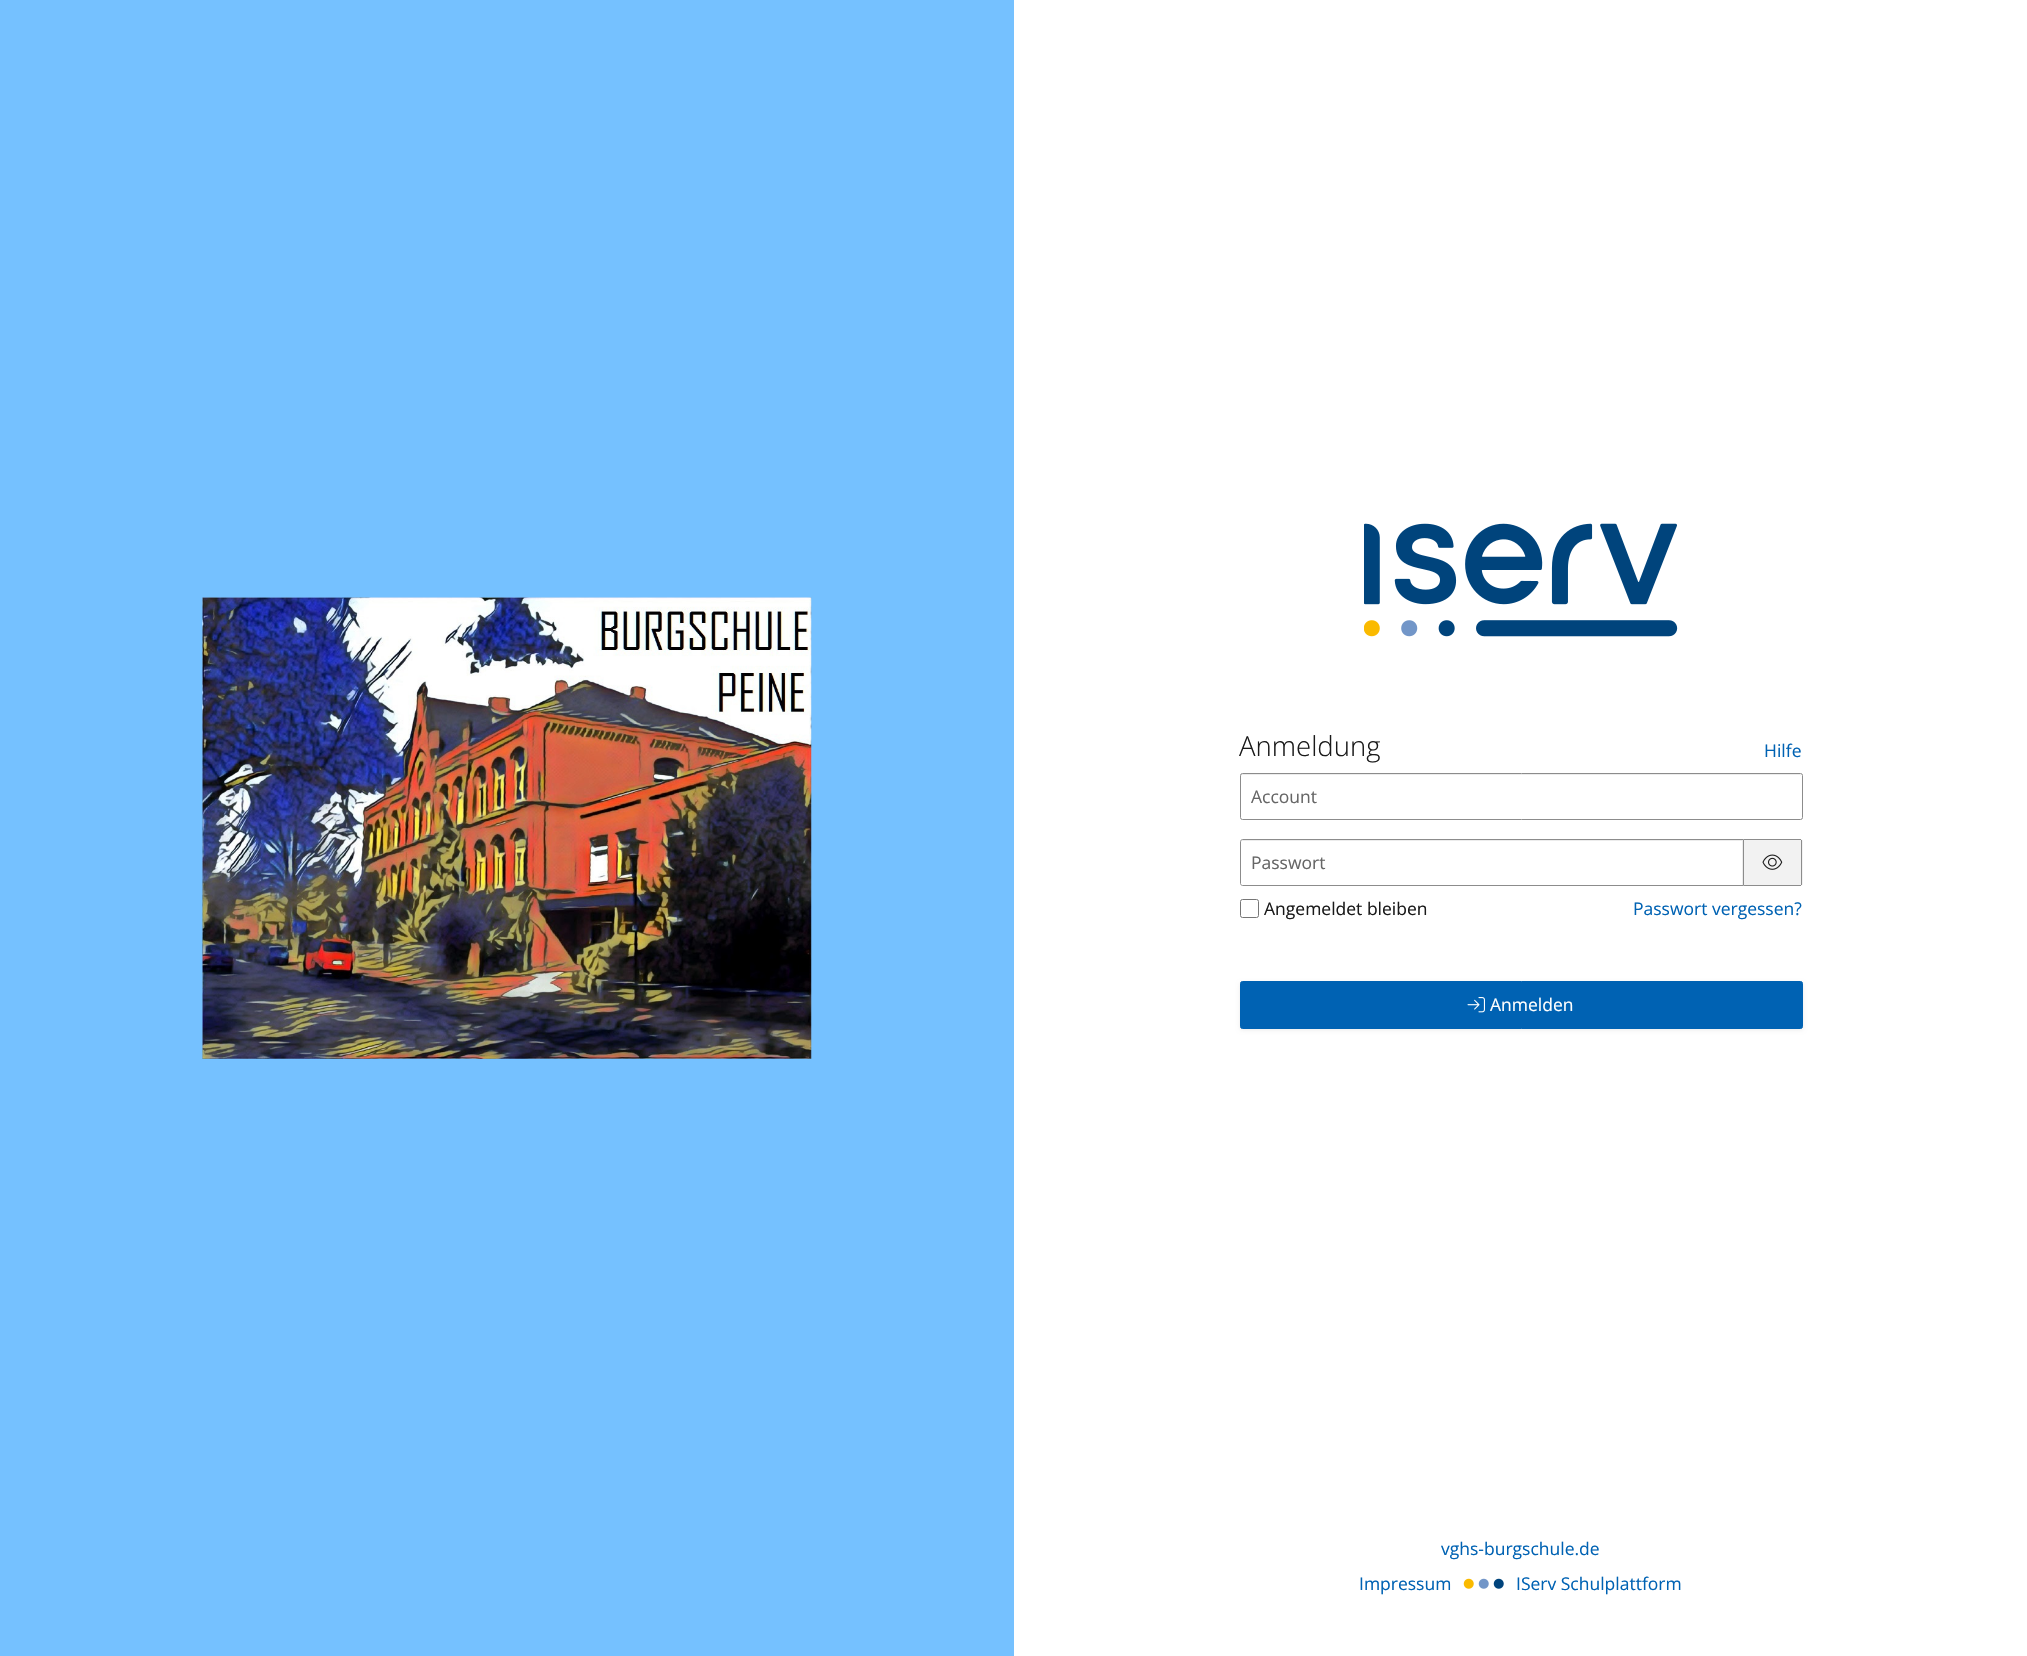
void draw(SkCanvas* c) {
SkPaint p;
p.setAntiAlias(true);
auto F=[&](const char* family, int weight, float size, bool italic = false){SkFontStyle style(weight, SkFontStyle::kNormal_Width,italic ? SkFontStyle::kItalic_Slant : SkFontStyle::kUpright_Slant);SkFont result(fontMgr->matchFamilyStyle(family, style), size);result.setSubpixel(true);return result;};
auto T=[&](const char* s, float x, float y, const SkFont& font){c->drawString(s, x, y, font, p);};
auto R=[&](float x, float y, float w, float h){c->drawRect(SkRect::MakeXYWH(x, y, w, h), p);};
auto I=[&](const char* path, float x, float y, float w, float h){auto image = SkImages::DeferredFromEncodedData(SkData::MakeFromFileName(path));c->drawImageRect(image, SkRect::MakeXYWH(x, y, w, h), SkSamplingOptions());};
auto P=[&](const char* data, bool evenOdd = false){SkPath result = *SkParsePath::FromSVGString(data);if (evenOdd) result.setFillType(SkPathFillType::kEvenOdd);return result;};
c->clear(0xffffffff);
p.setColor(0xff75c1ff);
R(0,0,1014,1656);
I("1.png",202,597,610,462);
I("2.png",1364,523,314,114);
auto f1 = F("Open Sans",300,27.5);
p.setColor(0xff1a1a1a);
T("Anmeldung",1239,756,f1);
auto f2 = F("Open Sans",400,17.5);
p.setColor(0xff0062b3);
T("Hilfe",1764,757,f2);
p.setColor(0xffececec);
c->drawPath(P("M1242 775h558l1 1c0-1 0-2-1-2h-559v2z"),p);
p.setStroke(true);
p.setStrokeWidth(1);
p.setColor(0xff8c8c8c);
c->drawRoundRect(SkRect::MakeXYWH(1240.5,773.5,562,46),2,2,p);
p.setStroke(false);
p.setColor(0xff666666);
T("Account",1251,803,f2);
p.setColor(0xffececec);
c->drawPath(P("M1242 841h500v44h1v-45h-501l-1 1v1z"),p);
p.setStroke(true);
p.setColor(0xff8c8c8c);
c->drawPath(P("M1242.5 839.5h501v46h-501c-1 0-2-1-2-2v-42c0-1 1-2 2-2z"),p);
p.setStroke(false);
p.setColor(0xff666666);
T("Passwort",1251,869,f2);
p.setColor(0xfff2f2f2);
c->drawPath(P("M1744 839h56.5c1.5 0 2.5 1 2.5 2.5v42c0 1.5-1 2.5-2.5 2.5h-56.5z"),p);
p.setColor(0xff8c8c8c);
R(1744,839,57,1);
R(1801,840,1,45);
R(1744,885,57,1);
I("3.png",1762,854,21,16);
p.setStroke(true);
p.setColor(0xff767676);
c->drawRoundRect(SkRect::MakeXYWH(1240.5,899.5,18,18),2,2,p);
p.setStroke(false);
p.setColor(0xff1a1a1a);
T("Angemeldet bleiben",1264,915,f2);
p.setColor(0xff0062b3);
T("Passwort vergessen?",1633,915,f2);
p.setColor(0x14000000);
p.setMaskFilter(SkMaskFilter::MakeBlur(kNormal_SkBlurStyle, 2));
c->drawRoundRect(SkRect::MakeXYWH(1240,983,563,47),2.5,2.5,p);
p.setMaskFilter(nullptr);
p.setColor(0xff0062b3);
c->drawRoundRect(SkRect::MakeXYWH(1240.5,981.5,562,47),2,2,p);
p.setStroke(true);
c->drawRoundRect(SkRect::MakeXYWH(1240.5,981.5,562,47),2,2,p);
I("4.png",1467,997,18,16);
p.setStroke(false);
p.setColor(0xffffffff);
T("Anmelden",1490,1011,f2);
p.setColor(0xff0062b3);
T("vghs-burgschule.de",1441,1555,f2);
T("Impressum",1359,1590,f2);
I("5.png",1463,1578,11,11);
I("6.png",1478,1578,11,11);
I("7.png",1493,1578,11,11);
T("IServ Schulplattform",1516,1590,f2);
}
